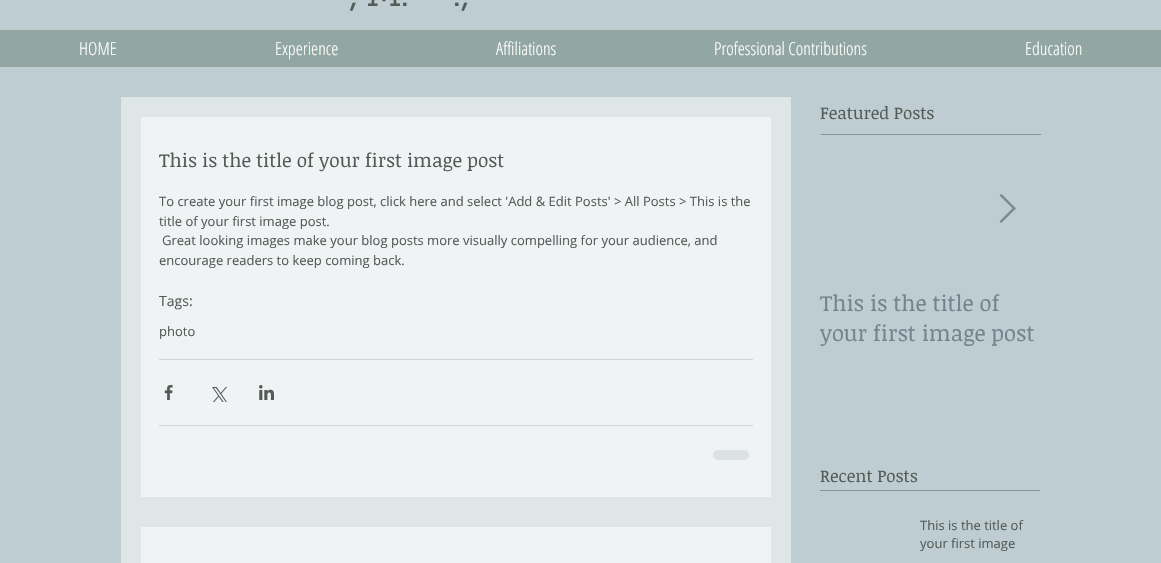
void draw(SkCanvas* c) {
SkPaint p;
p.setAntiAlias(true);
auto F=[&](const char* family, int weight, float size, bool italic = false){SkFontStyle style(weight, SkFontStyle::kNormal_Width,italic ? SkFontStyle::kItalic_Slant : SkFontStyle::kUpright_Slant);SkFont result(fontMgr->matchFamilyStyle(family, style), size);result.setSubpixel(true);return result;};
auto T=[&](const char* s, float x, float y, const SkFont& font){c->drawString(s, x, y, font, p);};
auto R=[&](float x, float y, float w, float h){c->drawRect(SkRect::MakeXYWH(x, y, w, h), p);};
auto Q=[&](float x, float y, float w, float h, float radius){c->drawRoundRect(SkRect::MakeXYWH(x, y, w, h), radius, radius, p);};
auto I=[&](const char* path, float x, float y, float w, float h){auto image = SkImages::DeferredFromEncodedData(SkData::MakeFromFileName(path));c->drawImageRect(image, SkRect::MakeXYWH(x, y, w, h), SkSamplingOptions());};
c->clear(0xffbecdd1);
auto f1 = F("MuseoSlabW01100",700,36);
p.setColor(0xff535b58);
T(", M.",349,6,f1);
T(".,",452,6,f1);
p.setColor(0xff92a6a2);
R(0,30,1161,37);
auto f2 = F("Open Sans Condensed",300,18);
p.setColor(0xffffffff);
T("HOME",79,55,f2);
T("Experience",275,55,f2);
T("Affiliations",496,55,f2);
T("Professional Contributions",714,55,f2);
T("Education",1025,55,f2);
auto f3 = F("Noticia Text",400,17);
p.setColor(0xff535b58);
T("Featured Posts",820,119,f3);
p.setColor(0xff809a91);
R(821,134,220,1);
p.setColor(0xffdfe6e8);
R(121,97,670,466);
p.setColor(0xffeff3f4);
R(141,117,630,380);
auto f4 = F("Noticia Text",400,19);
p.setColor(0xff535b58);
T("This is the title of your first image post",159,167,f4);
auto f5 = F("Open Sans",400,13);
T("To create your first image blog post, click here and select 'Add & Edit Posts' > All Posts > This is the",159,206,f5);
T("title of your first image post.",159,226,f5);
T("Great looking images make your blog posts more visually compelling for your audience, and",162,245,f5);
T("encourage readers to keep coming back.",159,265,f5);
auto f6 = F("Open Sans",400,14);
T("Tags:",159,306,f6);
T("photo",159,336,f5);
p.setColor(0xffd0d5d5);
R(159,359,594,1);
I("1.png",164,385,9,15);
I("2.png",212,387,15,15);
I("3.png",259,385,15,15);
R(159,425,594,1);
p.setColor(0xffdce1e1);
Q(713,450,36,10,5);
p.setColor(0xffeff3f4);
R(141,527,630,36);
I("4.png",999,194,17,29);
c->save();
c->clipRect(SkRect::MakeXYWH(820,287,220,60));
auto f7 = F("Noticia Text",400,22);
p.setColor(0xff72858c);
T("This is the title of",820,311,f7);
c->restore();
T("your first image post",820,341,f7);
p.setColor(0xff535b58);
T("Recent Posts",820,482,f3);
p.setColor(0xff809a91);
R(820,490,220,1);
p.setColor(0xff535b58);
T("This is the title of",920,530,f5);
T("your first image",920,548,f5);
}
